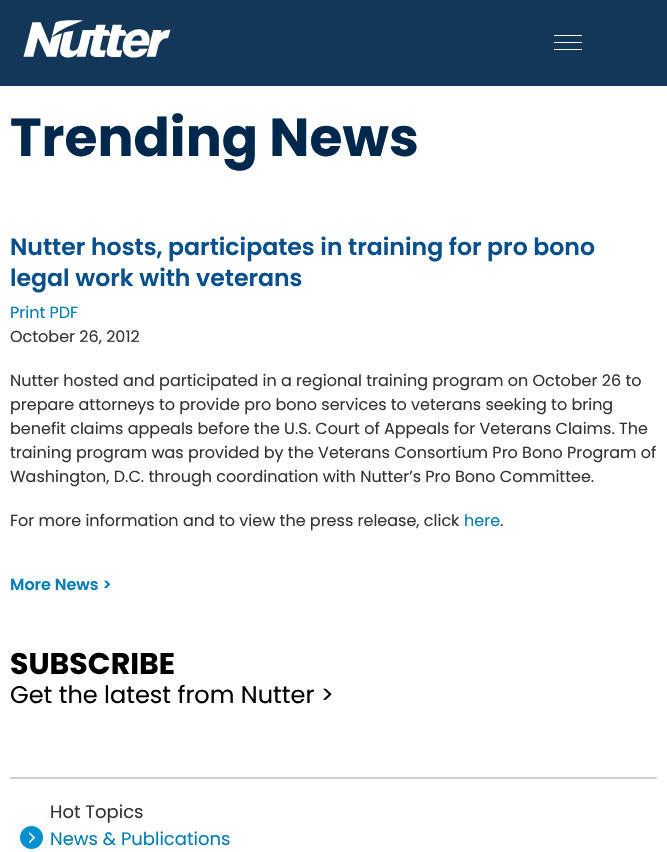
void draw(SkCanvas* c) {
SkPaint p;
p.setAntiAlias(true);
auto F=[&](const char* family, int weight, float size, bool italic = false){SkFontStyle style(weight, SkFontStyle::kNormal_Width,italic ? SkFontStyle::kItalic_Slant : SkFontStyle::kUpright_Slant);SkFont result(fontMgr->matchFamilyStyle(family, style), size);result.setSubpixel(true);return result;};
auto T=[&](const char* s, float x, float y, const SkFont& font){c->drawString(s, x, y, font, p);};
auto R=[&](float x, float y, float w, float h){c->drawRect(SkRect::MakeXYWH(x, y, w, h), p);};
auto I=[&](const char* path, float x, float y, float w, float h){auto image = SkImages::DeferredFromEncodedData(SkData::MakeFromFileName(path));c->drawImageRect(image, SkRect::MakeXYWH(x, y, w, h), SkSamplingOptions());};
c->clear(0xffffffff);
p.setColor(0xff123759);
R(0,0,667,86);
I("1.png",23,20,148,38);
p.setColor(0xffffffff);
R(554,49,28,1);
R(554,42,28,1);
R(554,35,28,1);
auto f1 = F("Poppins",700,53.5);
p.setColor(0xff00284c);
T("Trending News",10,156,f1);
auto f2 = F("Poppins",600,23.6);
p.setColor(0xff074f8d);
T("Nutter hosts, participates in training for pro bono",10,255,f2);
T("legal work with veterans",10,286,f2);
auto f3 = F("Poppins",400,16);
p.setColor(0xff007db3);
T("Print PDF",10,318,f3);
p.setColor(0xff333333);
T("October 26, 2012",10,342,f3);
T("Nutter hosted and participated in a regional training program on October 26 to",10,386,f3);
T("prepare attorneys to provide pro bono services to veterans seeking to bring",10,410,f3);
T("benefit claims appeals before the U.S. Court of Appeals for Veterans Claims. The",10,434,f3);
T("training program was provided by the Veterans Consortium Pro Bono Program of",10,458,f3);
T("Washington, D.C. through coordination with Nutter’s Pro Bono Committee.",10,482,f3);
T("For more information and to view the press release, click",10,526,f3);
p.setColor(0xff007db3);
T("here",464,526,f3);
p.setColor(0xff333333);
T(".",500,526,f3);
auto f4 = F("Poppins",600,16);
p.setColor(0xff007db3);
T("More News >",10,590,f4);
auto f5 = F("Poppins",700,30);
p.setColor(0xff000000);
T("SUBSCRIBE",10,674,f5);
auto f6 = F("Poppins",400,24);
T("Get the latest from Nutter >",10,703,f6);
p.setColor(0xffd0d0d0);
R(10,777,647,2);
auto f7 = F("Poppins",400,18);
p.setColor(0xff333333);
T("Hot Topics",50,818,f7);
I("2.png",20,826,23,23);
p.setColor(0xff007db3);
T("News & Publications",50,845,f7);
}
